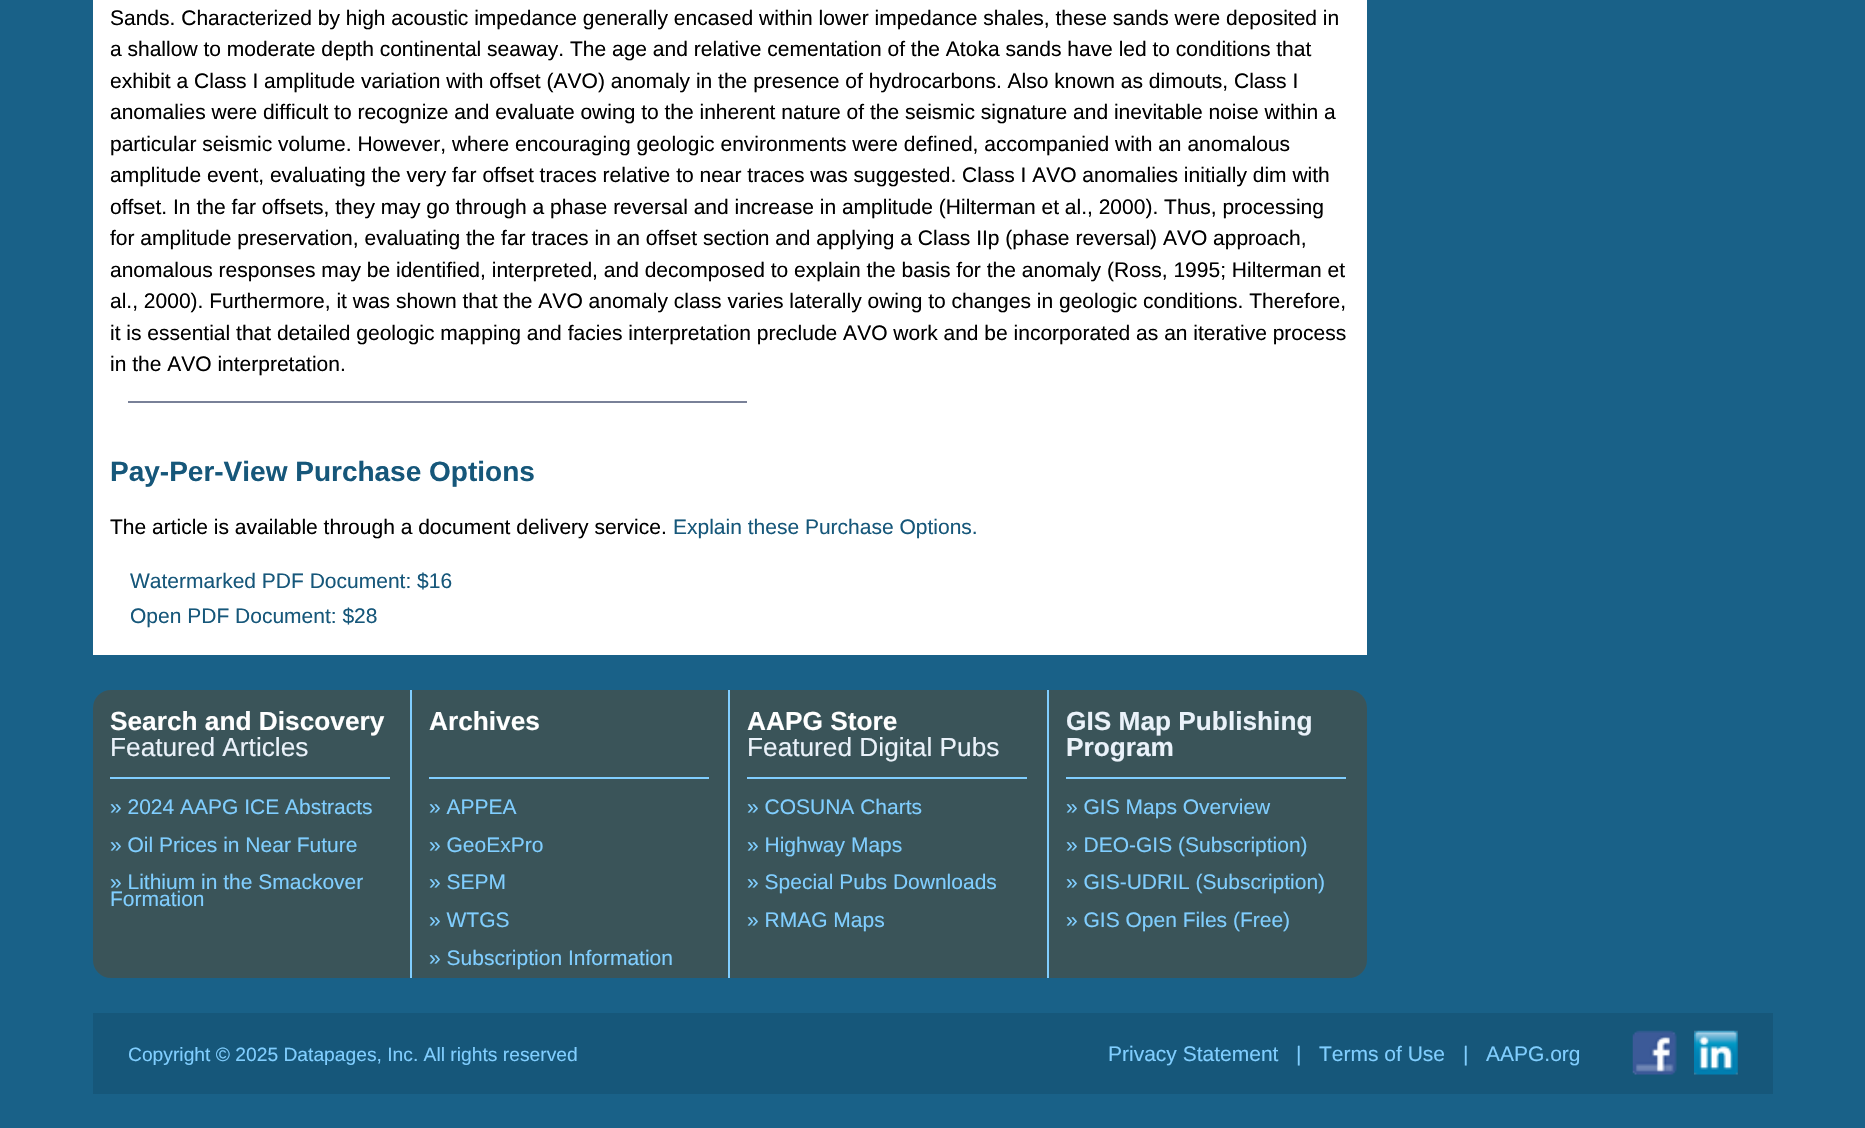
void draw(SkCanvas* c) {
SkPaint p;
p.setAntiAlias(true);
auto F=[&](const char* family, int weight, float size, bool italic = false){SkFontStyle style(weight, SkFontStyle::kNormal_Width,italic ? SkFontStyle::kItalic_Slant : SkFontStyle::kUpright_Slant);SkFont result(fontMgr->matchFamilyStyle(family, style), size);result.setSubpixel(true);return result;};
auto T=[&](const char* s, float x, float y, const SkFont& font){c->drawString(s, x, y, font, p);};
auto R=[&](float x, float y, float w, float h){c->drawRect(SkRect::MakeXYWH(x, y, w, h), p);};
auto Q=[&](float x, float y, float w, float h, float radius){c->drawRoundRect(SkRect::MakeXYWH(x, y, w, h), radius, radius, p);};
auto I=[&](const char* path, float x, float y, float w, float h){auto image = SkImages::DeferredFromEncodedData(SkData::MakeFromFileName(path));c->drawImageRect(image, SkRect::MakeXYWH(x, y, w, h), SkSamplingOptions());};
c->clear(0xff196188);
p.setColor(0xffffffff);
R(93,0,1274,655);
auto f1 = F("Liberation Sans",400,21);
p.setColor(0xff000000);
T("Sands. Characterized by high acoustic impedance generally encased within lower impedance shales, these sands were deposited in",110,25,f1);
T("a shallow to moderate depth continental seaway. The age and relative cementation of the Atoka sands have led to conditions that",110,56,f1);
T("exhibit a Class I amplitude variation with offset (AVO) anomaly in the presence of hydrocarbons. Also known as dimouts, Class I",110,88,f1);
T("anomalies were difficult to recognize and evaluate owing to the inherent nature of the seismic signature and inevitable noise within a",110,119,f1);
T("particular seismic volume. However, where encouraging geologic environments were defined, accompanied with an anomalous",110,151,f1);
T("amplitude event, evaluating the very far offset traces relative to near traces was suggested. Class I AVO anomalies initially dim with",110,182,f1);
T("offset. In the far offsets, they may go through a phase reversal and increase in amplitude (Hilterman et al., 2000). Thus, processing",110,214,f1);
T("for amplitude preservation, evaluating the far traces in an offset section and applying a Class IIp (phase reversal) AVO approach,",110,245,f1);
T("anomalous responses may be identified, interpreted, and decomposed to explain the basis for the anomaly (Ross, 1995; Hilterman et",110,277,f1);
T("al., 2000). Furthermore, it was shown that the AVO anomaly class varies laterally owing to changes in geologic conditions. Therefore,",110,308,f1);
T("it is essential that detailed geologic mapping and facies interpretation preclude AVO work and be incorporated as an iterative process",110,340,f1);
T("in the AVO interpretation.",110,371,f1);
p.setColor(0xff798198);
R(128,401,619,2);
auto f2 = F("Liberation Sans",700,28);
p.setColor(0xff16577a);
T("Pay-Per-View Purchase Options",110,481,f2);
p.setColor(0xff000000);
T("The article is available through a document delivery service.",110,534,f1);
p.setColor(0xff16577a);
T("Explain these Purchase Options.",673,534,f1);
T("Watermarked PDF Document: $16",130,588,f1);
T("Open PDF Document: $28",130,623,f1);
p.setColor(0xff3a5459);
Q(93,690,1274,288,18);
p.setColor(0xff80ceff);
R(110,777,280,2);
auto f3 = F("Liberation Sans",700,26.25);
p.setColor(0xffffffff);
T("Search and Discovery",110,730,f3);
auto f4 = F("Liberation Sans",400,26.25);
p.setColor(0xffeaf2fa);
T("Featured Articles",110,756,f4);
p.setColor(0xff80ceff);
T("» 2024 AAPG ICE Abstracts",110,814,f1);
T("» Oil Prices in Near Future",110,852,f1);
T("» Lithium in the Smackover",110,889,f1);
T("Formation",110,906,f1);
R(410,690,2,288);
R(429,777,280,2);
p.setColor(0xffffffff);
T("Archives",429,730,f3);
p.setColor(0xff80ceff);
T("» APPEA",429,814,f1);
T("» GeoExPro",429,852,f1);
T("» SEPM",429,889,f1);
T("» WTGS",429,927,f1);
T("» Subscription Information",429,965,f1);
R(728,690,2,288);
R(747,777,280,2);
p.setColor(0xffffffff);
T("AAPG Store",747,730,f3);
p.setColor(0xffeaf2fa);
T("Featured Digital Pubs",747,756,f4);
p.setColor(0xff80ceff);
T("» COSUNA Charts",747,814,f1);
T("» Highway Maps",747,852,f1);
T("» Special Pubs Downloads",747,889,f1);
T("» RMAG Maps",747,927,f1);
R(1047,690,2,288);
R(1066,777,280,2);
p.setColor(0xffeaf2fa);
T("GIS Map Publishing",1066,730,f3);
T("Program",1066,756,f3);
p.setColor(0xff80ceff);
T("» GIS Maps Overview",1066,814,f1);
T("» DEO-GIS (Subscription)",1066,852,f1);
T("» GIS-UDRIL (Subscription)",1066,889,f1);
T("» GIS Open Files (Free)",1066,927,f1);
p.setColor(0xff16577a);
R(93,1013,1680,81);
auto f5 = F("Liberation Sans",400,19.25);
p.setColor(0xff80ceff);
T("Copyright © 2025 Datapages, Inc. All rights reserved",128,1061,f5);
T("Privacy Statement",1108,1061,f1);
T("|",1296,1061,f1);
T("Terms of Use",1319,1061,f1);
T("|",1463,1061,f1);
T("AAPG.org",1486,1061,f1);
I("1.png",1632,1030,45,45);
I("2.png",1694,1030,44,45);
}
